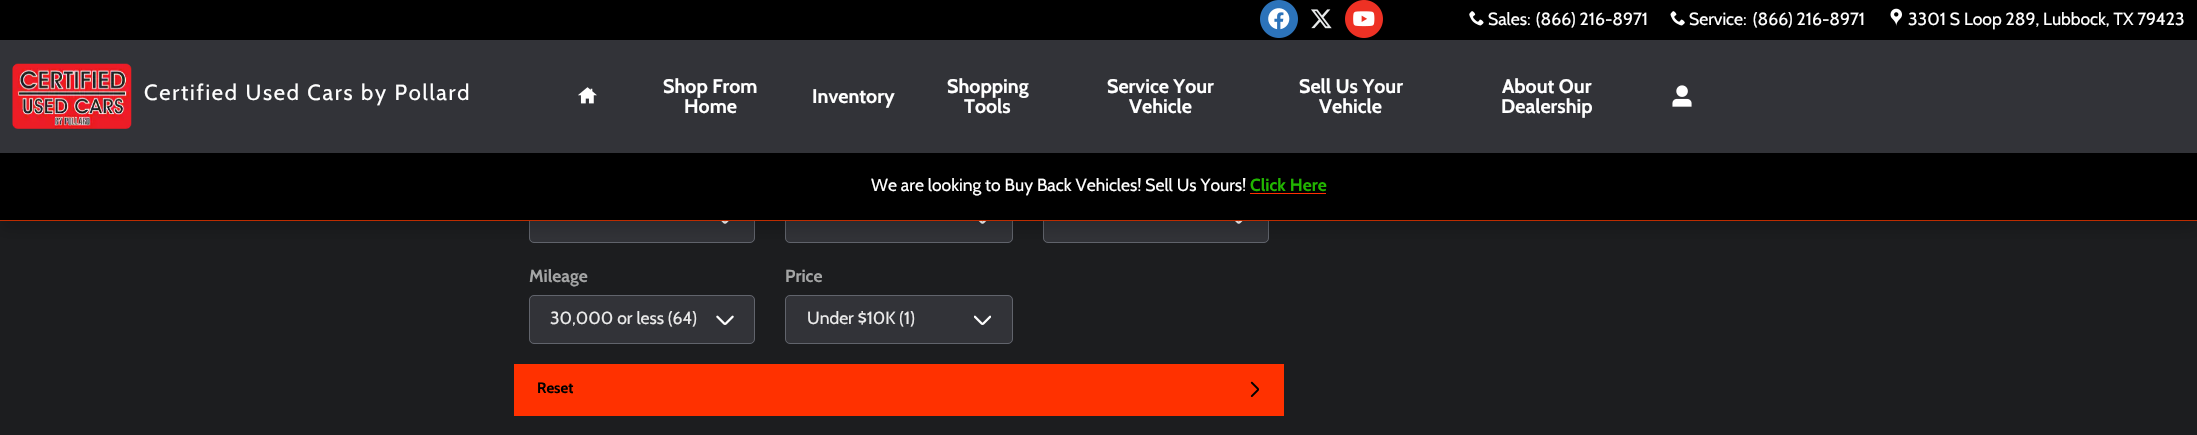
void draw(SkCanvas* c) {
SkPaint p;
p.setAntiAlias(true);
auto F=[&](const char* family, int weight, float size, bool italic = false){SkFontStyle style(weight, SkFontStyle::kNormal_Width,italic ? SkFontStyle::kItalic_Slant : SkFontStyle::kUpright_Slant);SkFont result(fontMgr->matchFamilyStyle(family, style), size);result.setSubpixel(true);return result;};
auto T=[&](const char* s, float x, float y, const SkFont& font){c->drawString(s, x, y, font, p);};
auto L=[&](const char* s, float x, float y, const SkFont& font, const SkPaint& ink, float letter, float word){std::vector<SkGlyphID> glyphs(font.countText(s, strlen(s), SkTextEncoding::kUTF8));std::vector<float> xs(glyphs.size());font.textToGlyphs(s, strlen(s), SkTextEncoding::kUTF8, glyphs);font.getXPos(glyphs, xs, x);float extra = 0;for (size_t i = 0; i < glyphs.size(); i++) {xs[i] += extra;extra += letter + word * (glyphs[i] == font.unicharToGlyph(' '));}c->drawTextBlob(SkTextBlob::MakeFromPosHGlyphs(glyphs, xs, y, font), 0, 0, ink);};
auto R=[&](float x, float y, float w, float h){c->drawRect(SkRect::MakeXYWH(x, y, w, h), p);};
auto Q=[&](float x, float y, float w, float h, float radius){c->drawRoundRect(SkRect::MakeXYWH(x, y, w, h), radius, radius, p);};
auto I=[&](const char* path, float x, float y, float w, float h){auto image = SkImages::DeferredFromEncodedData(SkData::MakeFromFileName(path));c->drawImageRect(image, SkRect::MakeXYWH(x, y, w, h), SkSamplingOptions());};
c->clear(0xff1c1d1f);
p.setColor(0xff323338);
Q(529,194,226,49,5);
I("10.png",721,221,8,3);
p.setStroke(true);
p.setStrokeWidth(1);
p.setColor(0xff61646c);
c->drawRoundRect(SkRect::MakeXYWH(529.5,194.5,225,48),4.5,4.5,p);
p.setStroke(false);
p.setColor(0xff323338);
Q(785,194,228,49,5);
I("11.png",978,221,9,3);
p.setStroke(true);
p.setColor(0xff61646c);
c->drawRoundRect(SkRect::MakeXYWH(785.5,194.5,227,48),4.5,4.5,p);
p.setStroke(false);
p.setColor(0xff323338);
Q(1043,194,226,49,5);
I("12.png",1235,221,8,3);
p.setStroke(true);
p.setColor(0xff61646c);
c->drawRoundRect(SkRect::MakeXYWH(1043.5,194.5,225,48),4.5,4.5,p);
p.setStroke(false);
p.setColor(0x2e000000);
p.setMaskFilter(SkMaskFilter::MakeBlur(kNormal_SkBlurStyle, 7.5));
c->drawRect(SkRect::MakeXYWH(0,8,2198,221),p);
p.setMaskFilter(nullptr);
p.setColor(0xff323338);
R(0,40,2197,113);
p.setColor(0xffbd2c00);
R(0,220,2197,1);
p.setColor(0xff000000);
R(0,0,2197,40);
I("1.png",1260,0,38,38);
I("2.png",1311,9,21,20);
I("3.png",1345,0,38,38);
I("4.png",1469,11,15,15);
auto f1 = F("Cabin",400,17.5);
p.setColor(0xffffffff);
T("Sales:",1488,25,f1);
T("(866) 216-8971",1536,25,f1);
I("5.png",1670,11,15,15);
T("Service:",1689,25,f1);
T("(866) 216-8971",1753,25,f1);
I("6.png",1890,8,12,18);
T("3301 S Loop 289, Lubbock, TX 79423",1908,25,f1);
I("7.png",12,63,120,66);
auto f2 = F("Cabin",400,21.9);
L("Certified Used Cars by Pollard",144,100,f2,p,1.75,0);
I("8.png",578,87,19,17);
auto f3 = F("Cabin",700,19.75);
T("Shop From",663,93,f3);
T("Home",684,113,f3);
T("Inventory",812,103,f3);
T("Shopping",947,93,f3);
T("Tools",964,113,f3);
T("Service Your",1107,93,f3);
T("Vehicle",1129,113,f3);
T("Sell Us Your",1299,93,f3);
T("Vehicle",1319,113,f3);
T("About Our",1502,93,f3);
T("Dealership",1501,113,f3);
I("9.png",1672,85,20,22);
p.setColor(0xff000000);
R(0,153,2197,67);
p.setColor(0xffffffff);
T("We are looking to Buy Back Vehicles! Sell Us Yours!",871,191,f1);
auto f4 = F("Cabin",700,17.5);
p.setColor(0xff21b500);
T("Click Here",1250,191,f4);
p.setColor(0xffff3100);
R(1250,193,76,1);
p.setColor(0xffa4a5a5);
T("Mileage",529,282,f4);
p.setColor(0xff323338);
Q(529,295,226,49,5);
I("13.png",716,315,18,10);
p.setStroke(true);
p.setColor(0xff61646c);
c->drawRoundRect(SkRect::MakeXYWH(529.5,295.5,225,48),4.5,4.5,p);
p.setStroke(false);
p.setColor(0xffebebeb);
T("30,000 or less (64)",550,324,f1);
p.setColor(0xffa4a5a5);
T("Price",785,282,f4);
p.setColor(0xff323338);
Q(785,295,228,49,5);
I("14.png",974,315,17,10);
p.setStroke(true);
p.setColor(0xff61646c);
c->drawRoundRect(SkRect::MakeXYWH(785.5,295.5,227,48),4.5,4.5,p);
p.setStroke(false);
p.setColor(0xffebebeb);
T("Under $10K (1)",807,324,f1);
p.setColor(0xffff3100);
R(514,364,770,52);
auto f5 = F("Cabin",700,15);
p.setColor(0xff000000);
T("Reset",537,393,f5);
I("15.png",1250,381,9,16);
}
